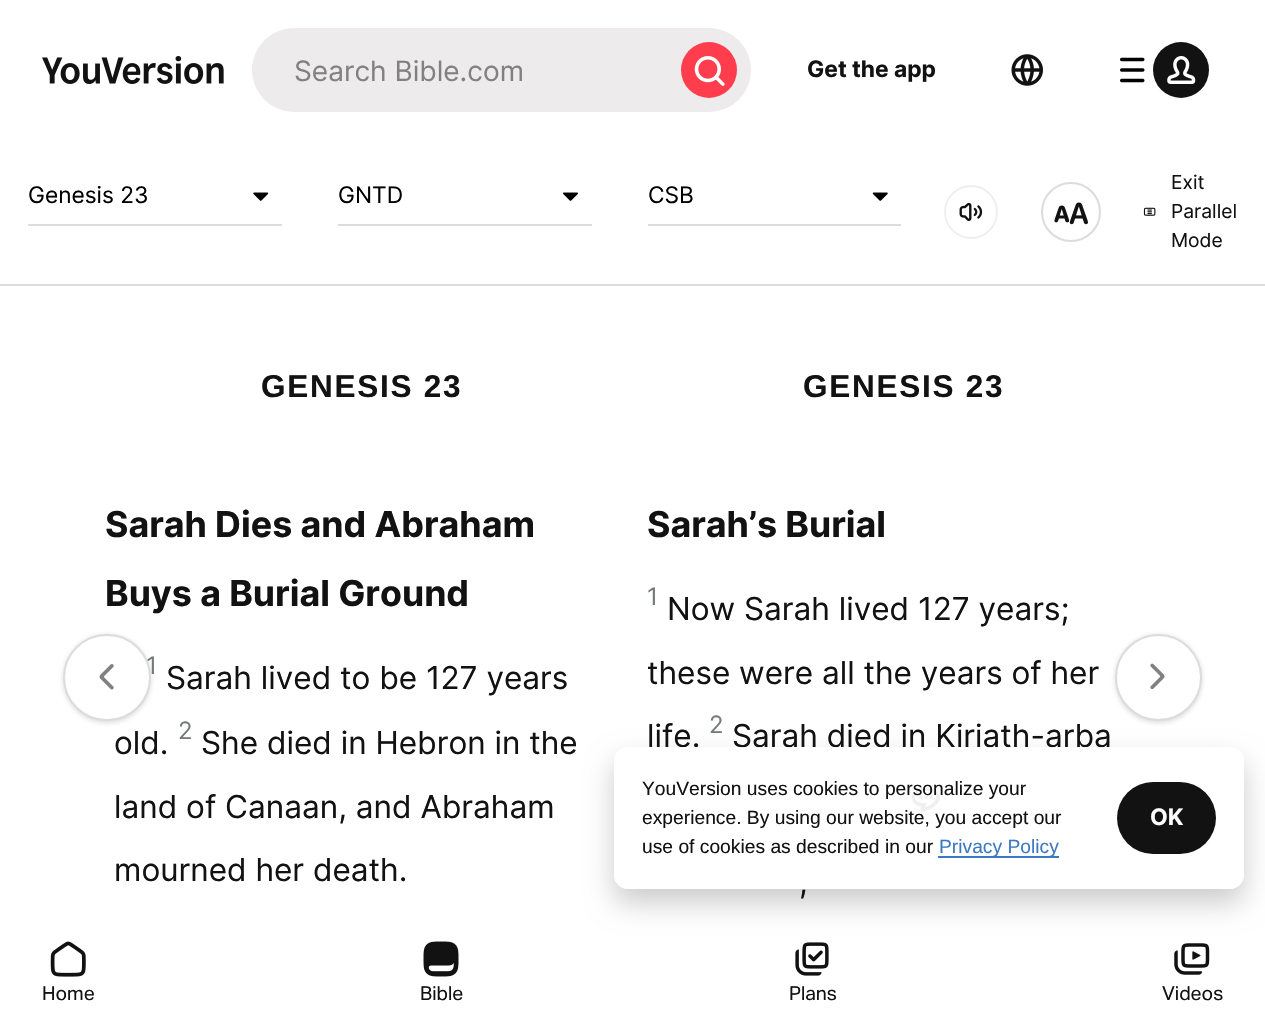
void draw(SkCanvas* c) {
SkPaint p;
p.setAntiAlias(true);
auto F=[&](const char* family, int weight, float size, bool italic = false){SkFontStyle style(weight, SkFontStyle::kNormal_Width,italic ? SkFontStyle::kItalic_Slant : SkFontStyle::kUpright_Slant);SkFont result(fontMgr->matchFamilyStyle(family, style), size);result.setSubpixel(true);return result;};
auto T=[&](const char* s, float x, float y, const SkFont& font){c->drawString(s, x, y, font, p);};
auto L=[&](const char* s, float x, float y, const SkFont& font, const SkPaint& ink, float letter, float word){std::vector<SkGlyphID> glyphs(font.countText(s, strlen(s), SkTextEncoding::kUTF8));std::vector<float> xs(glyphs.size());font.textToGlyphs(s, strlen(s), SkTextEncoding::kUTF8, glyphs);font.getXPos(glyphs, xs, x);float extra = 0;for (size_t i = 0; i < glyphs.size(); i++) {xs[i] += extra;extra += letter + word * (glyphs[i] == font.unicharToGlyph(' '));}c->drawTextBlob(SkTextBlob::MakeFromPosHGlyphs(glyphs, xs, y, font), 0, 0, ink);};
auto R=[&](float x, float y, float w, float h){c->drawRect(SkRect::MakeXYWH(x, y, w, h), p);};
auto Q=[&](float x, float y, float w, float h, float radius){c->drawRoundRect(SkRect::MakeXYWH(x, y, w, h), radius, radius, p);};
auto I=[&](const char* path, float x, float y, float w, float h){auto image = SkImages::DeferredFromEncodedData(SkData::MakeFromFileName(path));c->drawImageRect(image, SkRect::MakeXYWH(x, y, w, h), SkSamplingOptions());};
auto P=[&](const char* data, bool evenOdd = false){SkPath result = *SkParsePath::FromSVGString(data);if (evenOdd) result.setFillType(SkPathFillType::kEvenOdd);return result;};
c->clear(0xffffffff);
I("1.png",42,56,182,28);
p.setColor(0xffedebeb);
Q(252,28,499,84,42);
Q(252,42,415,56,28);
auto f1 = F("Inter",400,28);
p.setColor(0xff828080);
T("Search Bible.com",294,81,f1);
p.setColor(0xffff3d4d);
c->drawCircle(709,70,28,p);
I("2.png",694,56,31,30);
auto f2 = F("Inter",700,22.75);
p.setColor(0xff121212);
T("Get the app",807,77,f2);
I("3.png",1011,54,32,32);
I("4.png",1120,57,25,26);
c->drawCircle(1181,70,28,p);
I("5.png",1167,56,29,28);
p.setColor(0xffdddbdb);
R(0,284,1265,2);
R(28,224,254,2);
auto f3 = F("Inter",400,22.75);
p.setColor(0xff000000);
T("Genesis 23",28,203,f3);
I("6.png",253,192,16,9);
p.setColor(0xffdddbdb);
R(338,224,254,2);
p.setColor(0xff000000);
T("GNTD",338,203,f3);
I("7.png",563,192,15,9);
p.setColor(0xffdddbdb);
R(648,224,253,2);
p.setColor(0xff000000);
T("CSB",648,203,f3);
I("8.png",872,192,16,9);
I("9.png",959,202,24,19);
p.setStroke(true);
p.setStrokeWidth(1.8);
p.setColor(0xffedefef);
c->drawCircle(971,212,26,p);
p.setStrokeWidth(2);
p.setColor(0xffdddbdb);
c->drawCircle(1071,212,29,p);
I("10.png",1054,202,34,23);
auto f4 = F("Inter",400,19.25);
p.setStroke(false);
p.setColor(0xff121212);
T("Exit",1171,189,f4);
I("11.png",1143,207,13,9);
T("Parallel",1171,218,f4);
T("Mode",1171,247,f4);
auto f5 = F("Liberation Sans",700,31.5);
L("GENESIS 23",261,397,f5,p,1.75,0);
auto f6 = F("Inter",700,35.75);
T("Sarah Dies and Abraham",105,537,f6);
T("Buys a Burial Ground",105,606,f6);
auto f7 = F("Inter",400,24);
p.setColor(0xff777a7b);
T("1",146,674,f7);
auto f8 = F("Inter",400,31.5);
p.setColor(0xff121212);
T("Sarah lived to be 127 years",166,689,f8);
T("old.",114,754,f8);
p.setColor(0xff777a7b);
T("2",178,739,f7);
p.setColor(0xff121212);
T("She died in Hebron in the",201,754,f8);
T("land of Canaan, and Abraham",114,818,f8);
T("mourned her death.",114,881,f8);
L("GENESIS 23",803,397,f5,p,1.75,0);
T("Sarah’s Burial",647,537,f6);
p.setColor(0xff777a7b);
T("1",647,605,f7);
p.setColor(0xff121212);
T("Now Sarah lived 127 years;",667,620,f8);
c->save();
c->clipRect(SkRect::MakeXYWH(648,285,512,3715));
T("these were all the years of her",647,684,f8);
c->restore();
T("life.",647,747,f8);
p.setColor(0xff777a7b);
T("2",709,733,f7);
p.setColor(0xff121212);
T("Sarah died in Kiriath-arba",732,747,f8);
I("12.png",911,787,29,25);
T(",",799,893,f8);
p.setColor(0x26121212);
p.setMaskFilter(SkMaskFilter::MakeBlur(kNormal_SkBlurStyle, 2.5));
c->drawRoundRect(SkRect::MakeXYWH(63,635,88,88),44,44,p);
p.setMaskFilter(nullptr);
p.setColor(0xffffffff);
c->drawRoundRect(SkRect::MakeXYWH(64,635,86,85),42.5,42.5,p);
p.setStroke(true);
p.setColor(0xffdddbdb);
c->drawRoundRect(SkRect::MakeXYWH(64,635,86,85),42.5,42.5,p);
I("13.png",99,664,15,26);
p.setStroke(false);
p.setColor(0x26121212);
p.setMaskFilter(SkMaskFilter::MakeBlur(kNormal_SkBlurStyle, 2.5));
c->drawRoundRect(SkRect::MakeXYWH(1115,635,87,88),43.5,43.5,p);
p.setMaskFilter(nullptr);
p.setColor(0xffffffff);
c->drawCircle(1158.5,677.5,42.5,p);
p.setStroke(true);
p.setColor(0xffdddbdb);
c->drawCircle(1158.5,677.5,42.5,p);
I("14.png",1150,663,15,27);
I("17.png",795,942,34,34);
I("18.png",1174,943,36,32);
c->save();
c->clipPath(P("M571 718h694v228h-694zm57 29h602c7.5 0 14 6.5 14 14v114c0 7.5-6.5 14-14 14h-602c-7.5 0-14-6.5-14-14v-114c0-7.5 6.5-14 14-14z",true),true);
p.setStroke(false);
p.setColor(0x33000000);
p.setMaskFilter(SkMaskFilter::MakeBlur(kNormal_SkBlurStyle, 14));
c->drawRoundRect(SkRect::MakeXYWH(614,761,630,142),14,14,p);
p.setMaskFilter(nullptr);
c->restore();
p.setColor(0xccffffff);
Q(614,747,630,142,14);
auto f9 = F("Liberation Sans",400,19.25);
p.setColor(0xff121212);
T("YouVersion uses cookies to personalize your",642,795,f9);
T("experience. By using our website, you accept our",642,824,f9);
T("use of cookies as described in our",642,853,f9);
p.setColor(0xff3d79c2);
R(938,856,121,2);
T("Privacy Policy",939,853,f9);
p.setColor(0xff121212);
Q(1117,782,99,72,36);
p.setColor(0xffffffff);
T("OK",1150,825,f2);
I("15.png",50,941,36,36);
auto f10 = F("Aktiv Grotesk",400,19.25);
p.setColor(0xff121212);
T("Home",42,1000,f10);
I("16.png",423,941,36,36);
T("Bible",420,1000,f10);
T("Plans",789,1000,f10);
T("Videos",1162,1000,f10);
}
